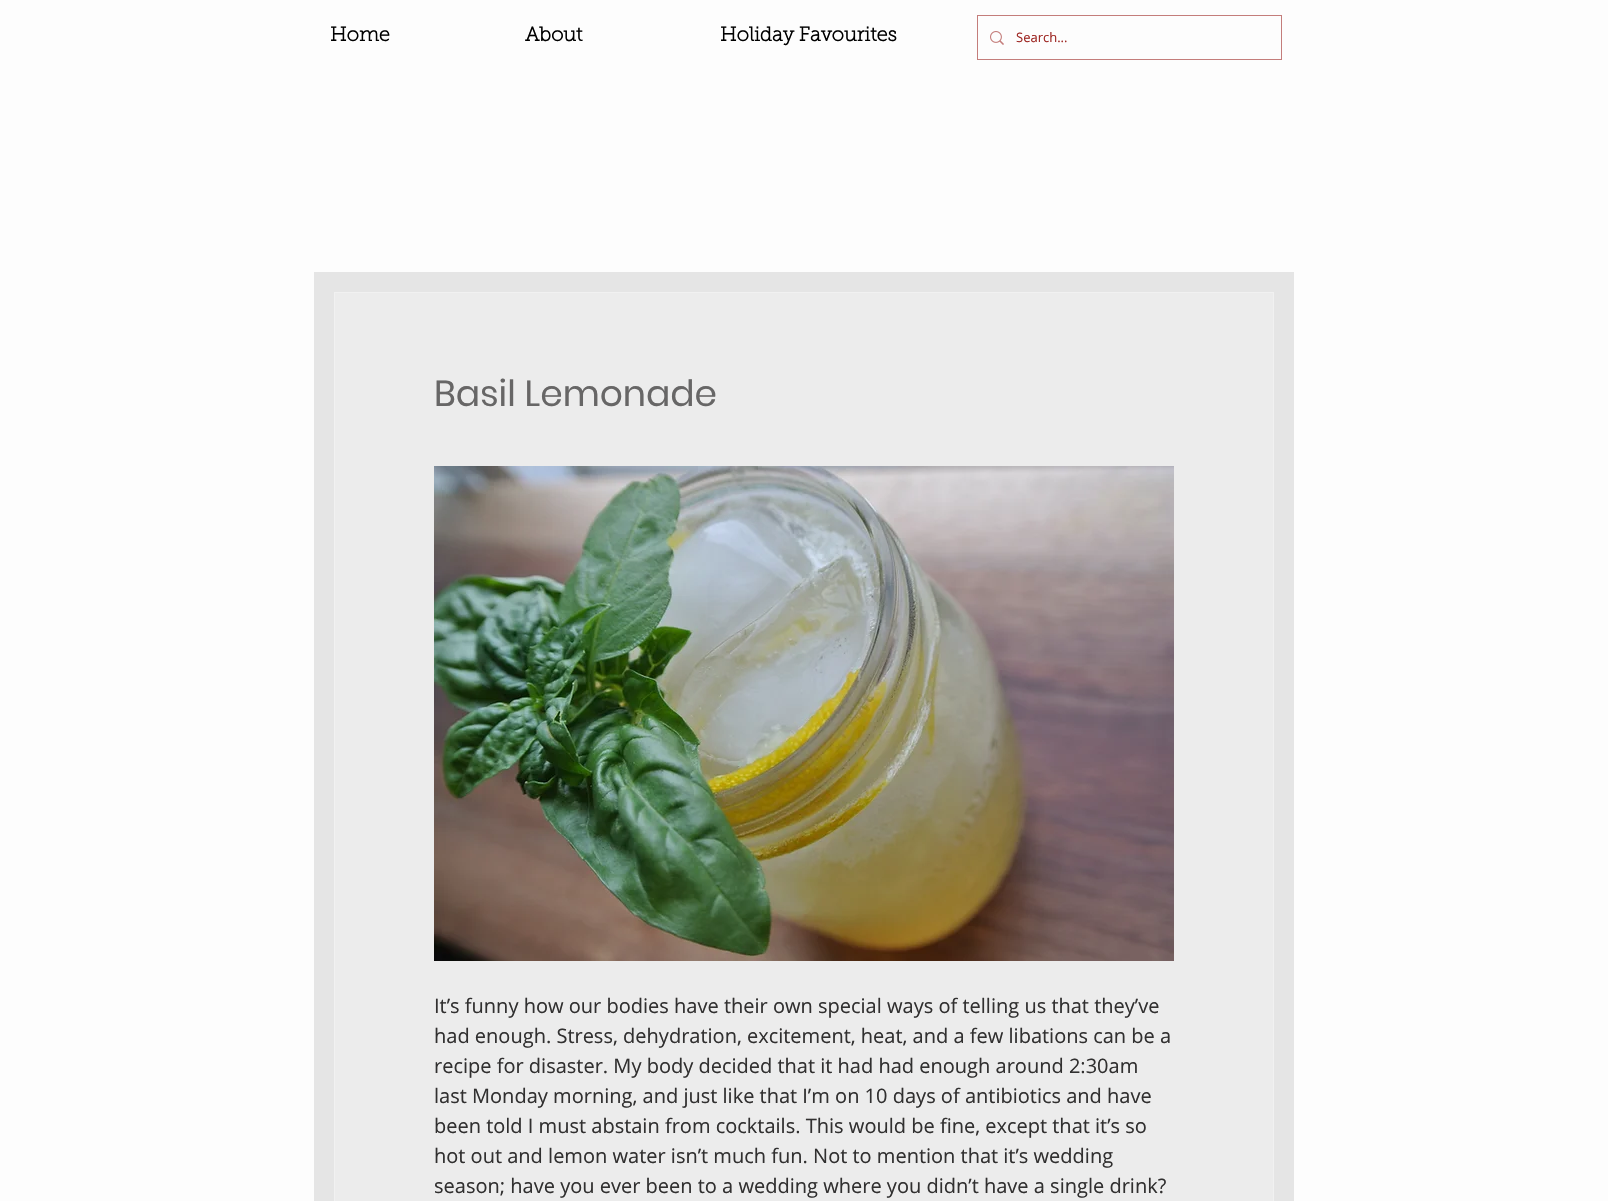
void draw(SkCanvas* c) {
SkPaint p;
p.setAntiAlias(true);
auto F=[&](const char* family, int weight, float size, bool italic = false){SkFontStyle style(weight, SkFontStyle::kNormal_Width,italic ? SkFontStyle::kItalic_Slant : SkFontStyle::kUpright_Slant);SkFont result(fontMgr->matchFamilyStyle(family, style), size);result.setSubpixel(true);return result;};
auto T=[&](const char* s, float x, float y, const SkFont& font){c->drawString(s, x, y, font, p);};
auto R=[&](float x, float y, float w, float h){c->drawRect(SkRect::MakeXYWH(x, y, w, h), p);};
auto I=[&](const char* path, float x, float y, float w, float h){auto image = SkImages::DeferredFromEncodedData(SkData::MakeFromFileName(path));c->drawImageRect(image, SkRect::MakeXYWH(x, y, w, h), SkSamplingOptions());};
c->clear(0xfffdfdfd);
auto f1 = F("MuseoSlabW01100",700,20);
p.setColor(0xff000000);
T("Home",330,41,f1);
T("About",525,41,f1);
T("Holiday Favourites",720,41,f1);
p.setStroke(true);
p.setStrokeWidth(1);
p.setColor(0xffc47d7b);
c->drawRect(SkRect::MakeXYWH(977.5,15.5,304,44),p);
I("1.png",990,31,14,14);
auto f2 = F("Open Sans",400,13);
p.setStroke(false);
p.setColor(0xff9e2824);
T("Search...",1016,42,f2);
p.setColor(0xffe5e5e5);
R(314,272,980,929);
p.setColor(0xffececec);
c->drawRect(SkRect::MakeXYWH(334.5,292.5,939,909),p);
p.setStroke(true);
p.setColor(0xfff1f1f1);
c->drawRect(SkRect::MakeXYWH(334.5,292.5,939,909),p);
auto f3 = F("Poppins",400,36);
p.setStroke(false);
p.setColor(0xff676666);
T("Basil Lemonade",434,406,f3);
I("2.png",434,466,740,495);
auto f4 = F("Open Sans",400,20);
p.setColor(0xff313030);
T("It’s funny how our bodies have their own special ways of telling us that they’ve",434,1013,f4);
T("had enough. Stress, dehydration, excitement, heat, and a few libations can be a",434,1043,f4);
T("recipe for disaster. My body decided that it had had enough around 2:30am",434,1073,f4);
T("last Monday morning, and just like that I’m on 10 days of antibiotics and have",434,1103,f4);
T("been told I must abstain from cocktails. This would be fine, except that it’s so",434,1133,f4);
T("hot out and lemon water isn’t much fun. Not to mention that it’s wedding",434,1163,f4);
T("season; have you ever been to a wedding where you didn’t have a single drink?",434,1193,f4);
}
